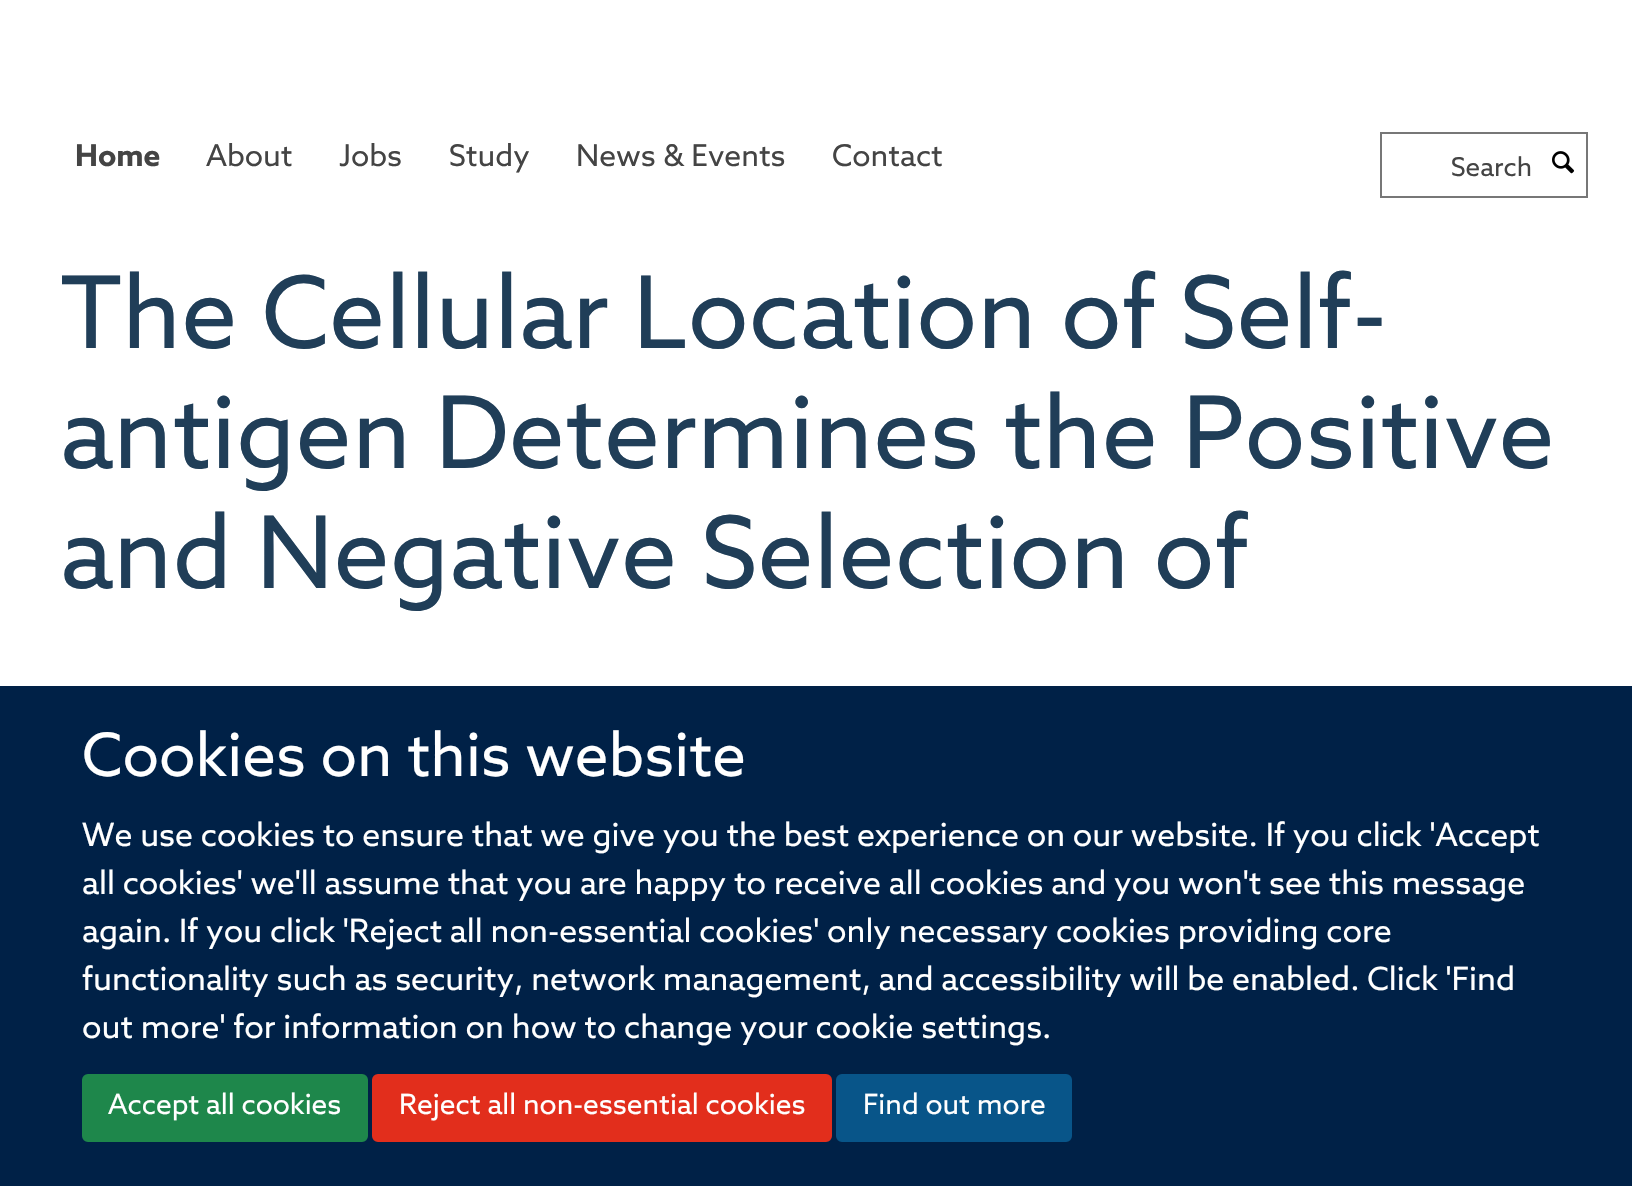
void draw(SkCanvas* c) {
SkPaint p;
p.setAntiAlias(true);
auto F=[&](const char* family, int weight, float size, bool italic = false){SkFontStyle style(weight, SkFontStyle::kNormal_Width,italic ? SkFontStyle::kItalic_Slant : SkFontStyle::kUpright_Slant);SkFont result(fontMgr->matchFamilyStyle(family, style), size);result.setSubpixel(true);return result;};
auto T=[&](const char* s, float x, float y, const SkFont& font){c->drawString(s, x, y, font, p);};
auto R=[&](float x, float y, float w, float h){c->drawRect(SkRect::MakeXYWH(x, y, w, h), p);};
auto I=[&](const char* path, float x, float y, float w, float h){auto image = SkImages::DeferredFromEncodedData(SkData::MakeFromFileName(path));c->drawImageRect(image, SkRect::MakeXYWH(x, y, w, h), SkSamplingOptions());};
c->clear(0xffffffff);
auto f1 = F("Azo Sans",700,30);
p.setColor(0xff444444);
T("Home",75,166,f1);
auto f2 = F("Azo Sans",400,30);
T("About",206,166,f2);
T("Jobs",339,166,f2);
T("Study",449,166,f2);
T("News & Events",576,166,f2);
T("Contact",832,166,f2);
p.setStroke(true);
p.setStrokeWidth(2);
p.setColor(0xff777777);
c->drawRect(SkRect::MakeXYWH(1381,133,206,64),p);
auto f3 = F("Azo Sans",400,26);
p.setStroke(false);
p.setColor(0xff444444);
T("Search",1451,176,f3);
I("1.png",1552,151,23,23);
auto f4 = F("Azo Sans",400,100);
p.setColor(0xff203e58);
T("The Cellular Location of Self-",60,348,f4);
T("antigen Determines the Positive",60,468,f4);
T("and Negative Selection of",60,588,f4);
p.setColor(0xff002147);
R(0,686,1632,500);
auto f5 = F("Azo Sans",400,60);
p.setColor(0xffffffff);
T("Cookies on this website",82,776,f5);
auto f6 = F("Azo Sans",400,32);
T("We use cookies to ensure that we give you the best experience on our website. If you click 'Accept",82,846,f6);
T("all cookies' we'll assume that you are happy to receive all cookies and you won't see this message",82,894,f6);
T("again. If you click 'Reject all non-essential cookies' only necessary cookies providing core",82,942,f6);
T("functionality such as security, network management, and accessibility will be enabled. Click 'Find",82,990,f6);
T("out more' for information on how to change your cookie settings.",82,1038,f6);
p.setColor(0xff1e874b);
c->drawRoundRect(SkRect::MakeXYWH(83,1075,284,66),5,5,p);
p.setStroke(true);
c->drawRoundRect(SkRect::MakeXYWH(83,1075,284,66),5,5,p);
auto f7 = F("Azo Sans",400,28);
p.setStroke(false);
p.setColor(0xffffffff);
T("Accept all cookies",108,1114,f7);
p.setColor(0xffe22e1c);
c->drawRoundRect(SkRect::MakeXYWH(373,1075,458,66),5,5,p);
p.setStroke(true);
c->drawRoundRect(SkRect::MakeXYWH(373,1075,458,66),5,5,p);
p.setStroke(false);
p.setColor(0xffffffff);
T("Reject all non-essential cookies",399,1114,f7);
p.setColor(0xff085589);
c->drawRoundRect(SkRect::MakeXYWH(837,1075,234,66),5,5,p);
p.setStroke(true);
c->drawRoundRect(SkRect::MakeXYWH(837,1075,234,66),5,5,p);
p.setStroke(false);
p.setColor(0xffffffff);
T("Find out more",863,1114,f7);
}
